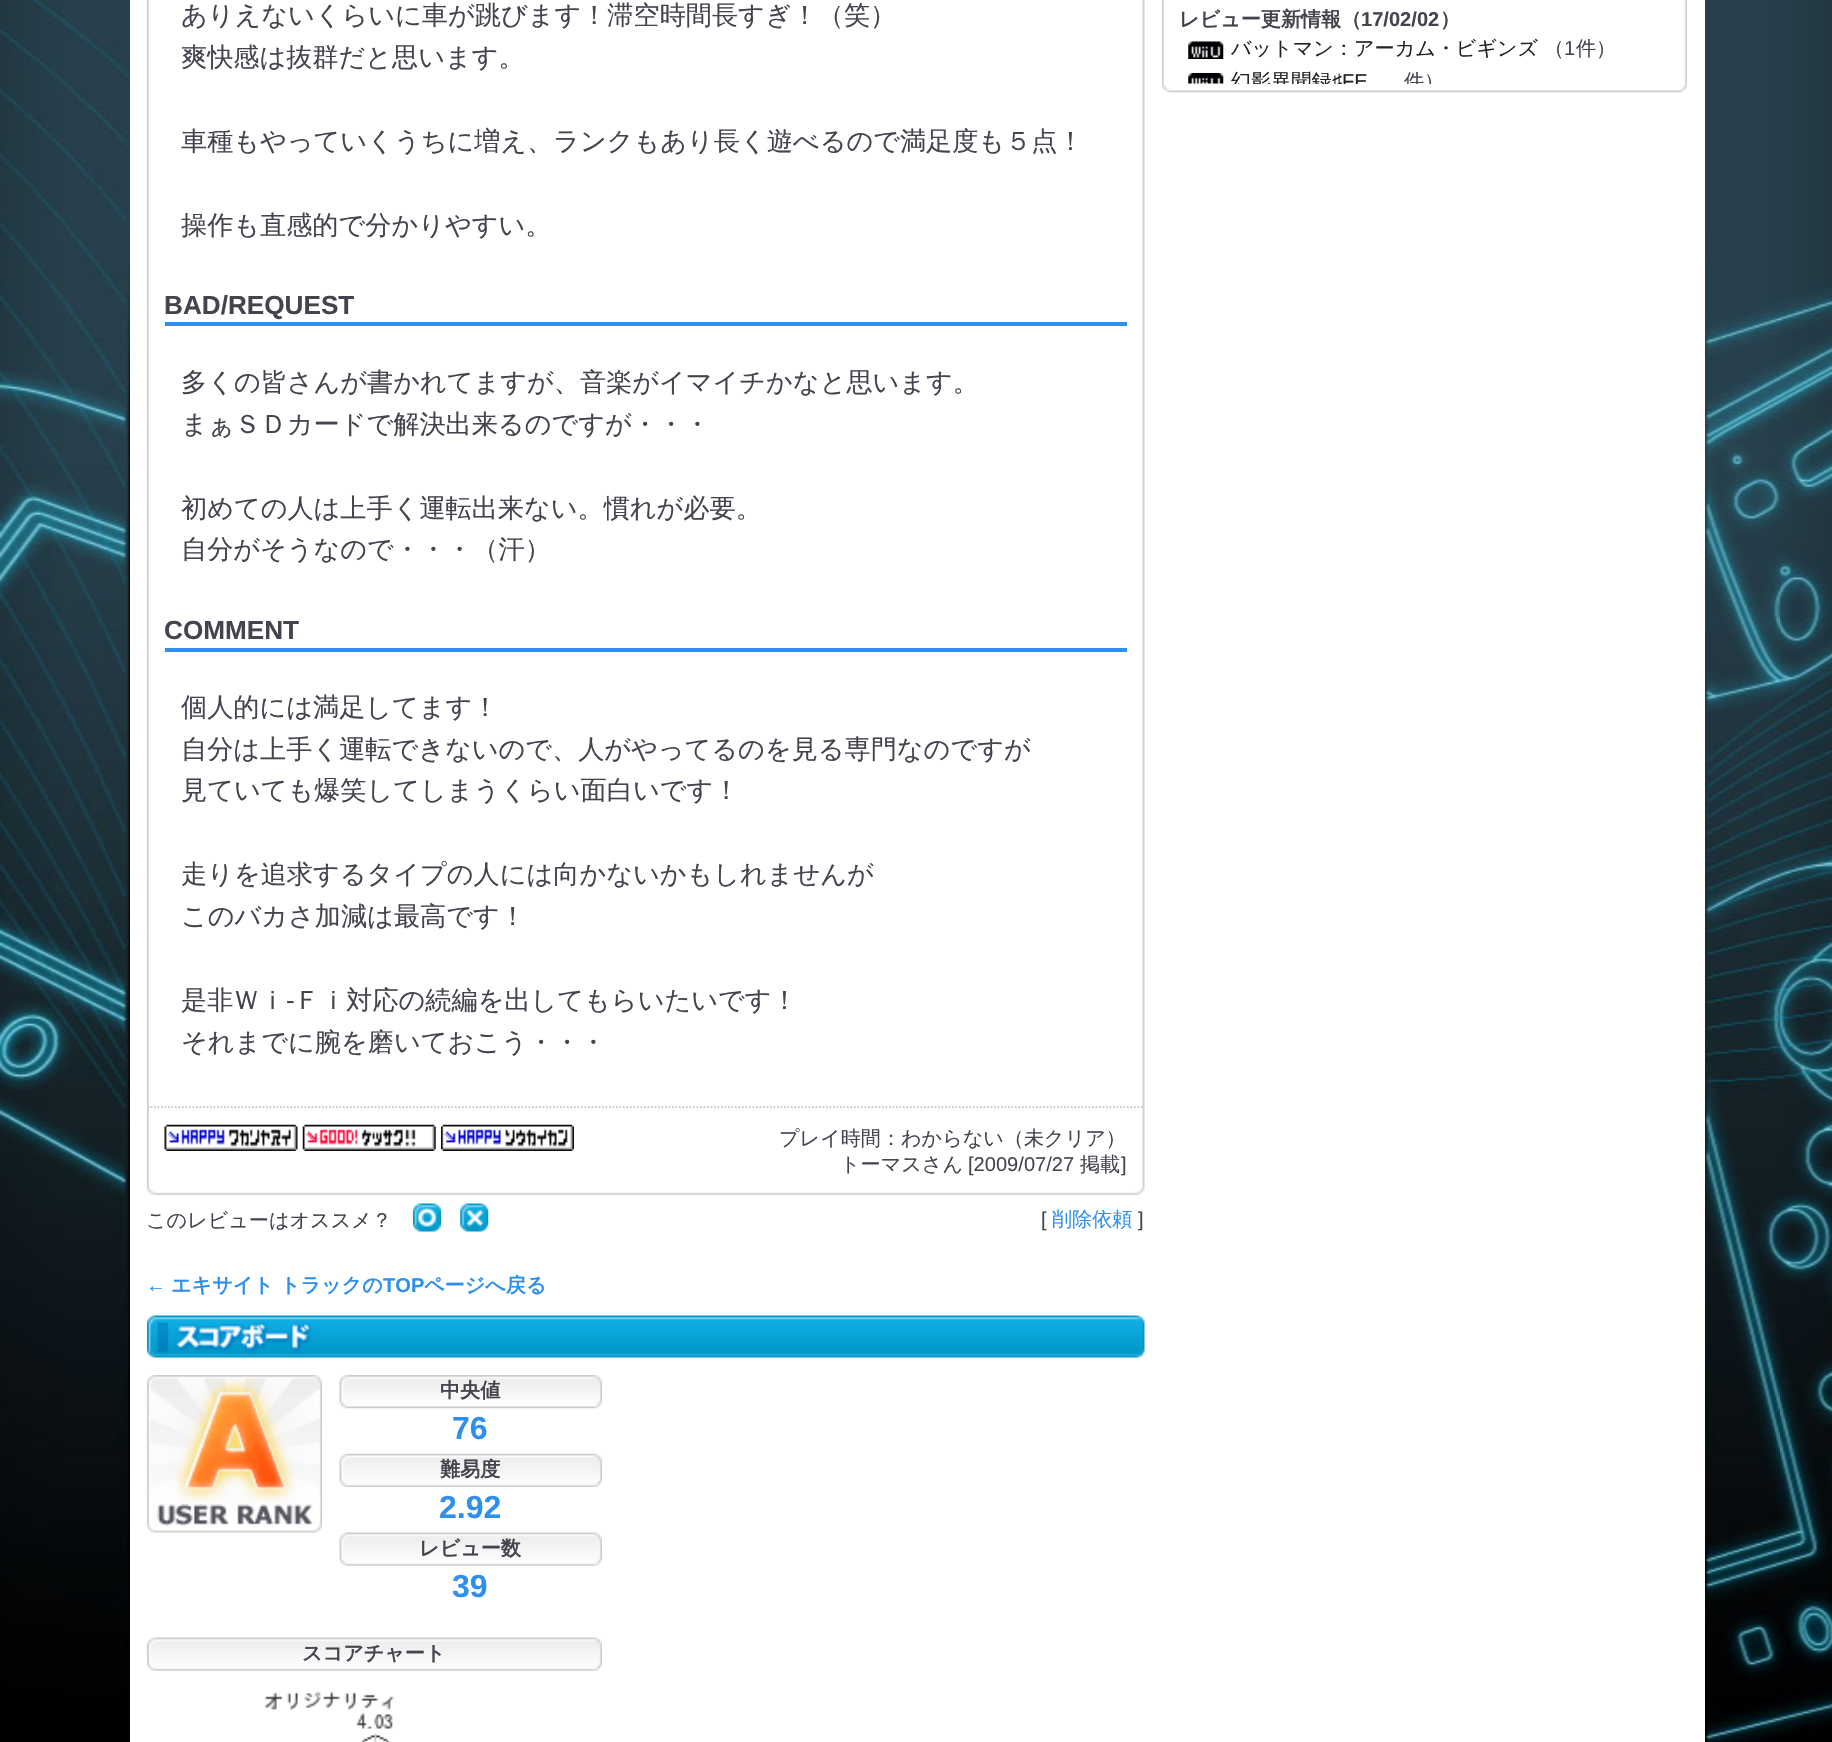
void draw(SkCanvas* c) {
SkPaint p;
p.setAntiAlias(true);
auto F=[&](const char* family, int weight, float size, bool italic = false){SkFontStyle style(weight, SkFontStyle::kNormal_Width,italic ? SkFontStyle::kItalic_Slant : SkFontStyle::kUpright_Slant);SkFont result(fontMgr->matchFamilyStyle(family, style), size);result.setSubpixel(true);return result;};
auto T=[&](const char* s, float x, float y, const SkFont& font){c->drawString(s, x, y, font, p);};
auto R=[&](float x, float y, float w, float h){c->drawRect(SkRect::MakeXYWH(x, y, w, h), p);};
auto I=[&](const char* path, float x, float y, float w, float h){auto image = SkImages::DeferredFromEncodedData(SkData::MakeFromFileName(path));c->drawImageRect(image, SkRect::MakeXYWH(x, y, w, h), SkSamplingOptions());};
auto P=[&](const char* data, bool evenOdd = false){SkPath result = *SkParsePath::FromSVGString(data);if (evenOdd) result.setFillType(SkPathFillType::kEvenOdd);return result;};
c->clear(0xffffffff);
I("1.png",0,0,1832,1742);
p.setColor(0xffffffff);
R(130,0,1575,1742);
I("2.png",147,0,998,1186);
auto f1 = F("WenQuanYi Zen Hei",500,26.15);
p.setColor(0xff44444f);
T("ありえないくらいに車が跳びます！滞空時間長すぎ！（笑）",181,24,f1);
T("爽快感は抜群だと思います。",181,66,f1);
T("車種もやっていくうちに増え、ランクもあり長く遊べるので満足度も５点！",181,150,f1);
T("操作も直感的で分かりやすい。",181,234,f1);
p.setColor(0xff2e90eb);
R(165,322,962,4);
auto f2 = F("Liberation Sans",700,26.15);
p.setColor(0xff44444f);
T("BAD/REQUEST",164,314,f2);
T("多くの皆さんが書かれてますが、音楽がイマイチかなと思います。",181,391,f1);
T("まぁＳＤカードで解決出来るのですが・・・",181,433,f1);
T("初めての人は上手く運転出来ない。慣れが必要。",181,517,f1);
T("自分がそうなので・・・（汗）",181,558,f1);
p.setColor(0xff2e90eb);
R(165,648,962,4);
p.setColor(0xff44444f);
T("COMMENT",164,639,f2);
T("個人的には満足してます！",181,716,f1);
T("自分は上手く運転できないので、人がやってるのを見る専門なのですが",181,758,f1);
T("見ていても爆笑してしまうくらい面白いです！",181,799,f1);
T("走りを追求するタイプの人には向かないかもしれませんが",181,883,f1);
T("このバカさ加減は最高です！",181,925,f1);
T("是非Ｗｉ",181,1009,f1);
auto f3 = F("Liberation Sans",400,26.15);
T("-",286,1009,f3);
T("Ｆｉ対応の続編を出してもらいたいです！",294,1009,f1);
T("それまでに腕を磨いておこう・・・",181,1051,f1);
p.setStroke(true);
p.setStrokeWidth(1.8);
p.setColor(0xffcccccf);
p.setPathEffect(SkDashPathEffect::Make({{1.75f,1.75f}}, 0));
c->drawPath(P("M147 1107h997.5"),p);
p.setPathEffect(nullptr);
I("3.png",164,1124,134,27);
I("4.png",302,1124,134,27);
I("5.png",441,1124,133,27);
auto f4 = F("WenQuanYi Zen Hei",500,20.1);
p.setStroke(false);
p.setColor(0xff44444f);
T("プレイ時間：わからない（未クリア）",779,1145,f4);
T("トーマスさん",840,1171,f4);
auto f5 = F("Liberation Sans",400,20.1);
T("[2009/07/27",968,1171,f5);
T("掲載",1080,1171,f4);
T("]",1121,1171,f5);
I("6.png",147,1186,998,9);
T("このレビューはオススメ？",146,1227,f4);
I("7.png",413,1203,28,29);
I("8.png",460,1203,29,29);
T("[",1041,1226,f5);
p.setColor(0xff2e90eb);
T("削除依頼",1052,1226,f4);
p.setColor(0xff44444f);
T("]",1138,1226,f5);
auto f6 = F("Liberation Sans",700,20.1);
p.setColor(0xff2e90eb);
T("←",146,1292,f6);
auto f7 = F("WenQuanYi Zen Hei",700,20.1);
T("エキサイト トラックの",171,1292,f7);
T("TOP",383,1292,f6);
T("ページへ戻る",424,1292,f7);
I("9.png",147,1315,998,43);
I("10.png",147,1375,175,158);
I("11.png",339,1375,263,34);
p.setColor(0xff44444f);
T("中央値",440,1397,f7);
auto f8 = F("Liberation Sans",700,32);
p.setColor(0xff2e90eb);
T("76",452,1439,f8);
I("12.png",339,1453,263,34);
p.setColor(0xff44444f);
T("難易度",440,1476,f7);
p.setColor(0xff2e90eb);
T("2.92",439,1518,f8);
I("13.png",339,1532,263,34);
p.setColor(0xff44444f);
T("レビュー数",419,1555,f7);
p.setColor(0xff2e90eb);
T("39",452,1597,f8);
I("14.png",147,1637,455,34);
p.setColor(0xff44444f);
T("スコアチャート",302,1660,f7);
I("15.png",264,1691,131,51);
I("19.png",1162,83,525,10);
I("16.png",1162,0,525,84);
T("レビュー更新情報（",1179,26,f7);
T("17/02/02",1361,26,f6);
T("）",1440,26,f7);
I("17.png",1188,41,36,18);
p.setColor(0xff222222);
T("バットマン：アーカム・ビギンズ",1231,55,f4);
p.setColor(0xff44444f);
T("（",1544,55,f4);
T("1",1564,55,f5);
T("件）",1576,55,f4);
I("18.png",1188,73,36,11);
c->save();
c->clipRect(SkRect::MakeXYWH(1162,0,525,84));
p.setColor(0xff222222);
T("幻影異聞録",1231,88,f4);
T("♯FE",1332,88,f5);
p.setColor(0xff44444f);
T("件）",1404,88,f4);
c->restore();
}
